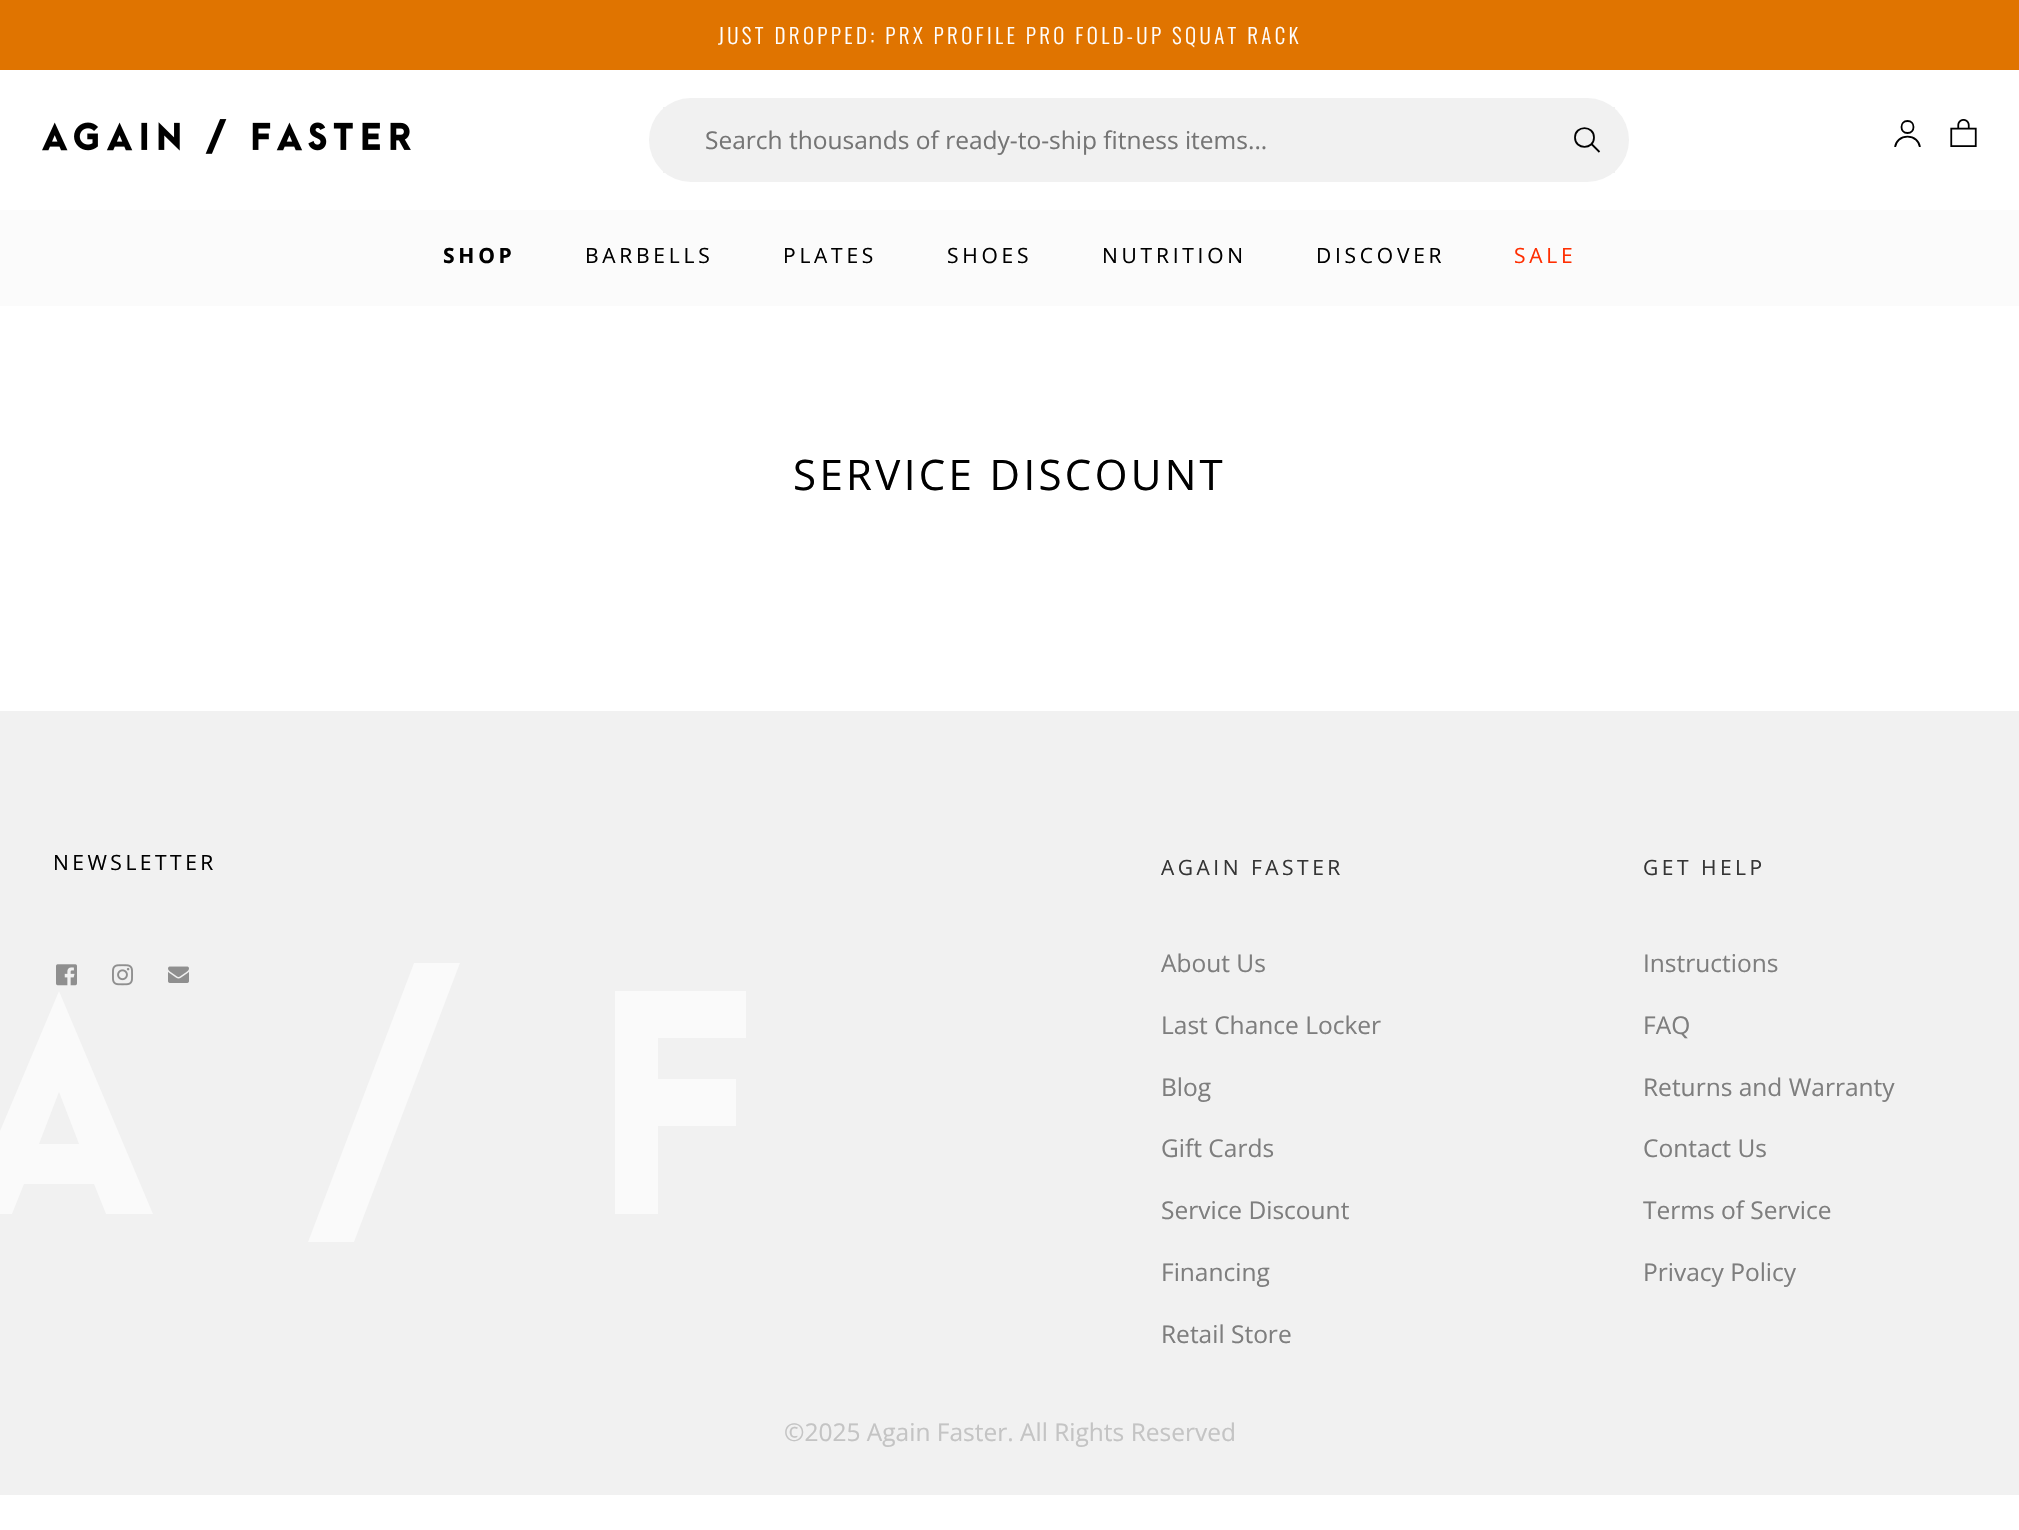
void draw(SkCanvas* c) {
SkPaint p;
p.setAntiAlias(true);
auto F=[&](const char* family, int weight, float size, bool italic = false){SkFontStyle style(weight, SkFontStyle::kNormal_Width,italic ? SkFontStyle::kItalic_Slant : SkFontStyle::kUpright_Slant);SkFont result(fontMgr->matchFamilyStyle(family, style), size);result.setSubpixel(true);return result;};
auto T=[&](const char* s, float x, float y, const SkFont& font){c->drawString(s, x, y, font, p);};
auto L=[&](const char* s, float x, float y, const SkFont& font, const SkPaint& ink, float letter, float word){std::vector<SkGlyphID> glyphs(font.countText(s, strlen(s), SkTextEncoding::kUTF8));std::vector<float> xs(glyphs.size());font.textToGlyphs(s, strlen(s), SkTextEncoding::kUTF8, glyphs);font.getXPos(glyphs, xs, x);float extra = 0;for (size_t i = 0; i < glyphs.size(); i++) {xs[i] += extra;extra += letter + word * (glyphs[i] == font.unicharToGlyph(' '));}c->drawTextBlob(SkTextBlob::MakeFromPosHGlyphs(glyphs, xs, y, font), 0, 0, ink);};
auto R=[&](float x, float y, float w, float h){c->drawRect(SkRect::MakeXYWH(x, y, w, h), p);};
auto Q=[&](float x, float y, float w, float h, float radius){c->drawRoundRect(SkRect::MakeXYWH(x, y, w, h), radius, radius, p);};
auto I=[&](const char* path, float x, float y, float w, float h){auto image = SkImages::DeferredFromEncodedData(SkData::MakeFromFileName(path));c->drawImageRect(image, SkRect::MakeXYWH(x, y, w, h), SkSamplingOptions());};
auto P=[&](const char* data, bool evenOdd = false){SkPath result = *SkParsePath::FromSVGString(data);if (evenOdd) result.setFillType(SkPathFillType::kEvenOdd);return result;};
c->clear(0xffffffff);
p.setColor(0xffe07400);
R(0,0,2019,70);
auto f1 = F("Oswald",300,21);
p.setColor(0xffffffff);
L("JUST DROPPED: PRX PROFILE PRO FOLD-UP SQUAT RACK",718,44,f1,p,3.35,0);
I("1.png",42,119,369,35);
p.setColor(0xfff1f1f1);
Q(649,98,980,84,42);
R(663,107,2,66);
auto f2 = F("Open Sans",400,24.5);
p.setColor(0xff757575);
T("Search thousands of ready-to-ship fitness items...",705,149,f2);
p.setColor(0xfff1f1f1);
R(1613,107,2,66);
p.setStroke(true);
p.setStrokeWidth(1.8);
p.setColor(0xff000000);
c->drawPath(P("M1594 137.5c0-12.5-19-12.5-19 0c0 12.5 19 12.5 19 0zm-3 6l8.5 8.5"),p);
c->drawPath(P("M1907.5 133c8 0 8-12 0-12c-8 0-8 12 0 12z"),p);
c->save();
c->clipPath(P("M1893.5 119h28v28h-28z"),true);
p.setStrokeJoin(SkPaint::kRound_Join);
c->drawPath(P("M1920 149c0-16.5-25-16.5-25 0"),p);
c->restore();
I("2.png",1950,119,27,28);
p.setStroke(false);
p.setColor(0xfffbfbfb);
R(0,210,2019,96);
auto f3 = F("Open Sans",700,21);
p.setColor(0xff000000);
L("SHOP",443,263,f3,p,3.75,0);
auto f4 = F("Open Sans",400,21);
L("BARBELLS",585,263,f4,p,3.75,0);
L("PLATES",783,263,f4,p,3.75,0);
L("SHOES",947,263,f4,p,3.75,0);
L("NUTRITION",1102,263,f4,p,3.75,0);
L("DISCOVER",1316,263,f4,p,3.75,0);
p.setColor(0xffff2e01);
L("SALE",1514,263,f4,p,3.75,0);
auto f5 = F("Open Sans",400,42);
p.setColor(0xff000000);
L("SERVICE DISCOUNT",793,490,f5,p,3.35,0);
p.setColor(0xfff1f1f1);
R(0,711,2019,784);
p.setColor(0xff000000);
L("NEWSLETTER",53,870,f4,p,3.5,0);
I("3.png",56,964,21,22);
I("4.png",112,964,21,22);
I("5.png",168,966,21,17);
p.setColor(0xff353535);
L("AGAIN FASTER",1161,875,f4,p,3.5,0);
p.setColor(0xff7e7e7e);
T("About Us",1161,972,f2);
T("Last Chance Locker",1161,1034,f2);
T("Blog",1161,1096,f2);
T("Gift Cards",1161,1157,f2);
T("Service Discount",1161,1219,f2);
T("Financing",1161,1281,f2);
T("Retail Store",1161,1343,f2);
p.setColor(0xff353535);
L("GET HELP",1643,875,f4,p,3.5,0);
p.setColor(0xff7e7e7e);
T("Instructions",1643,972,f2);
T("FAQ",1643,1034,f2);
T("Returns and Warranty",1643,1096,f2);
T("Contact Us",1643,1157,f2);
T("Terms of Service",1643,1219,f2);
T("Privacy Policy",1643,1281,f2);
p.setColor(0xfffafafa);
c->drawPath(P("M414 963h46l-106 279h-46z"),p);
c->drawPath(P("M94 1184h-70l-12 30h-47l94-223l94 223h-47zm-15-40l-20-52l-20 52z"),p);
c->drawPath(P("M615 991h131v47h-88v41h78v47h-78v88h-43z"),p);
p.setColor(0xffc4c4c4);
T("©2025 Again Faster. All Rights Reserved",784,1441,f2);
}
